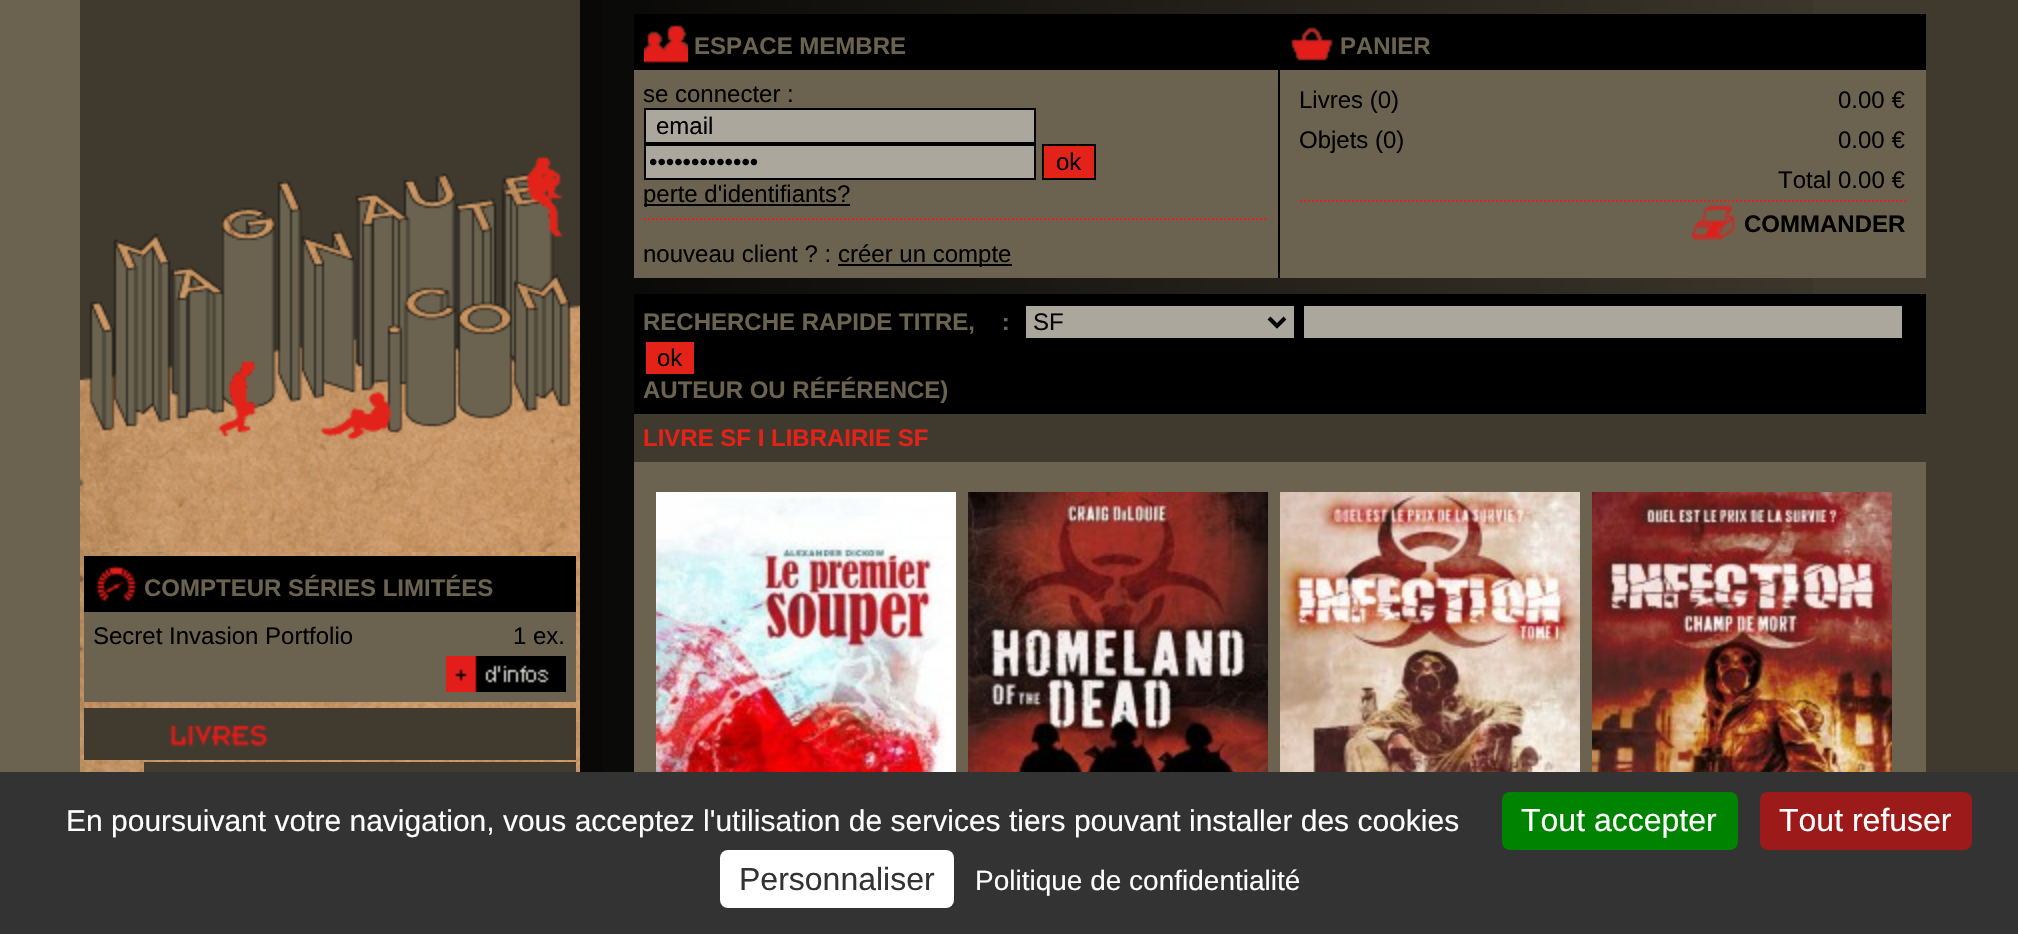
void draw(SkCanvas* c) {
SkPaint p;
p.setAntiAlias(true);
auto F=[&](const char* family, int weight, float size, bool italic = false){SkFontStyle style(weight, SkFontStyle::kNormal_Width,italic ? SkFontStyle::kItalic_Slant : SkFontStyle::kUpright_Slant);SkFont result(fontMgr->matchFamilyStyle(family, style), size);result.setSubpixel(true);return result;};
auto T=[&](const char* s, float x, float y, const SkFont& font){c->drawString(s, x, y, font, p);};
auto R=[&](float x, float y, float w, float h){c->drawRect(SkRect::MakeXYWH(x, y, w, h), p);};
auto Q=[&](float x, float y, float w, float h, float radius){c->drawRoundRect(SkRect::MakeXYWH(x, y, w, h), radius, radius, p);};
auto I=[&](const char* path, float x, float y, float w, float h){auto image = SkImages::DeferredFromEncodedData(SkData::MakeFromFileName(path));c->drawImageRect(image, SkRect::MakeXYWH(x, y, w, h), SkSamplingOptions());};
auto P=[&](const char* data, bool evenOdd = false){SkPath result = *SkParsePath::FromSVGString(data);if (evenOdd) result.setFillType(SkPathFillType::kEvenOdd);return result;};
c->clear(0xff403a2e);
I("1.png",0,0,1813,772);
p.setColor(0xff6b6350);
R(634,70,1292,208);
p.setColor(0xff000000);
R(1278,14,2,264);
R(634,14,644,56);
I("2.png",644,25,44,38);
auto f1 = F("Liberation Sans",700,24);
p.setColor(0xff6b6350);
T("ESPACE MEMBRE",694,54,f1);
p.setStroke(true);
p.setStrokeWidth(2);
p.setColor(0xffe32219);
p.setPathEffect(SkDashPathEffect::Make({{2,2}}, 0));
c->drawPath(P("M644 219h624"),p);
p.setPathEffect(nullptr);
auto f2 = F("Liberation Sans",400,24);
p.setStroke(false);
p.setColor(0xff000000);
T("se connecter :",643,102,f2);
p.setColor(0xffaca79c);
c->drawRect(SkRect::MakeXYWH(645,109,390,34),p);
p.setStroke(true);
p.setColor(0xff000000);
c->drawRect(SkRect::MakeXYWH(645,109,390,34),p);
p.setStroke(false);
T("email",656,134,f2);
p.setColor(0xffaca79c);
c->drawRect(SkRect::MakeXYWH(645,145,390,34),p);
p.setStroke(true);
p.setColor(0xff000000);
c->drawRect(SkRect::MakeXYWH(645,145,390,34),p);
p.setStroke(false);
T("•••••••••••••",649,170,f2);
p.setColor(0xffe32219);
c->drawRect(SkRect::MakeXYWH(1043,145,52,34),p);
p.setStroke(true);
p.setColor(0xff000000);
c->drawRect(SkRect::MakeXYWH(1043,145,52,34),p);
p.setStroke(false);
T("ok",1056,170,f2);
R(644,204,206,2);
T("perte d'identifiants?",643,202,f2);
T("nouveau client ? :",643,262,f2);
R(838,264,174,2);
T("créer un compte",838,262,f2);
R(1280,14,646,56);
I("3.png",1291,27,42,34);
p.setColor(0xff6b6350);
T("PANIER",1340,54,f1);
p.setColor(0xff000000);
T("Livres (0)",1299,108,f2);
T("0.00 €",1838,108,f2);
T("Objets (0)",1299,148,f2);
T("0.00 €",1838,148,f2);
T("Total 0.00 €",1778,188,f2);
p.setStroke(true);
p.setColor(0xffe32219);
p.setPathEffect(SkDashPathEffect::Make({{2,2}}, 0));
c->drawPath(P("M1300 201h606"),p);
p.setPathEffect(nullptr);
I("4.png",1692,205,43,36);
p.setStroke(false);
p.setColor(0xff000000);
T("COMMANDER",1744,232,f1);
R(634,294,1292,120);
p.setColor(0xff6b6350);
T("RECHERCHE RAPIDE TITRE,    :",643,330,f1);
p.setColor(0xffaca79c);
R(1026,306,268,32);
p.setStroke(true);
p.setStrokeWidth(4);
p.setColor(0xff000000);
c->drawPath(P("M1269 318l8 8l8-8"),p);
p.setStroke(false);
T("SF",1033,330,f2);
p.setColor(0xffaca79c);
R(1304,306,598,32);
p.setColor(0xffe32219);
R(646,342,48,32);
p.setColor(0xff000000);
T("ok",657,366,f2);
p.setColor(0xff6b6350);
T("AUTEUR OU RÉFÉRENCE)",643,398,f1);
p.setColor(0xff403a2e);
R(634,414,1179,48);
p.setColor(0xffe32219);
T("LIVRE SF I LIBRAIRIE SF",643,446,f1);
p.setColor(0xff6b6350);
R(634,462,1292,310);
I("5.png",656,492,300,280);
I("6.png",968,492,300,280);
I("7.png",1280,492,300,280);
I("8.png",1592,492,300,280);
I("9.png",80,0,500,552);
I("10.png",80,552,500,220);
p.setColor(0xff000000);
R(84,556,492,56);
I("11.png",95,566,42,37);
p.setColor(0xff6b6350);
T("COMPTEUR SÉRIES LIMITÉES",144,596,f1);
R(84,612,492,90);
p.setColor(0xff000000);
T("Secret Invasion Portfolio",93,644,f2);
T("1 ex.",513,644,f2);
I("12.png",446,656,120,36);
I("13.png",84,708,492,52);
p.setColor(0xff413a2f);
R(144,762,432,10);
p.setColor(0xff333333);
R(0,772,2018,162);
auto f3 = F("Liberation Sans",400,30);
p.setColor(0xffffffff);
T("En poursuivant votre navigation, vous acceptez l'utilisation de services tiers pouvant installer des cookies",66,831,f3);
p.setColor(0xff008300);
Q(1502,792,236,58,8);
auto f4 = F("Liberation Sans",400,32);
p.setColor(0xffffffff);
T("Tout accepter",1521,831,f4);
p.setColor(0xff9c1a1a);
Q(1760,792,212,58,8);
p.setColor(0xffffffff);
T("Tout refuser",1779,831,f4);
Q(720,850,234,58,8);
p.setColor(0xff333333);
T("Personnaliser",739,890,f4);
auto f5 = F("Liberation Sans",400,28);
p.setColor(0xffffffff);
T("Politique de confidentialité",975,890,f5);
}
